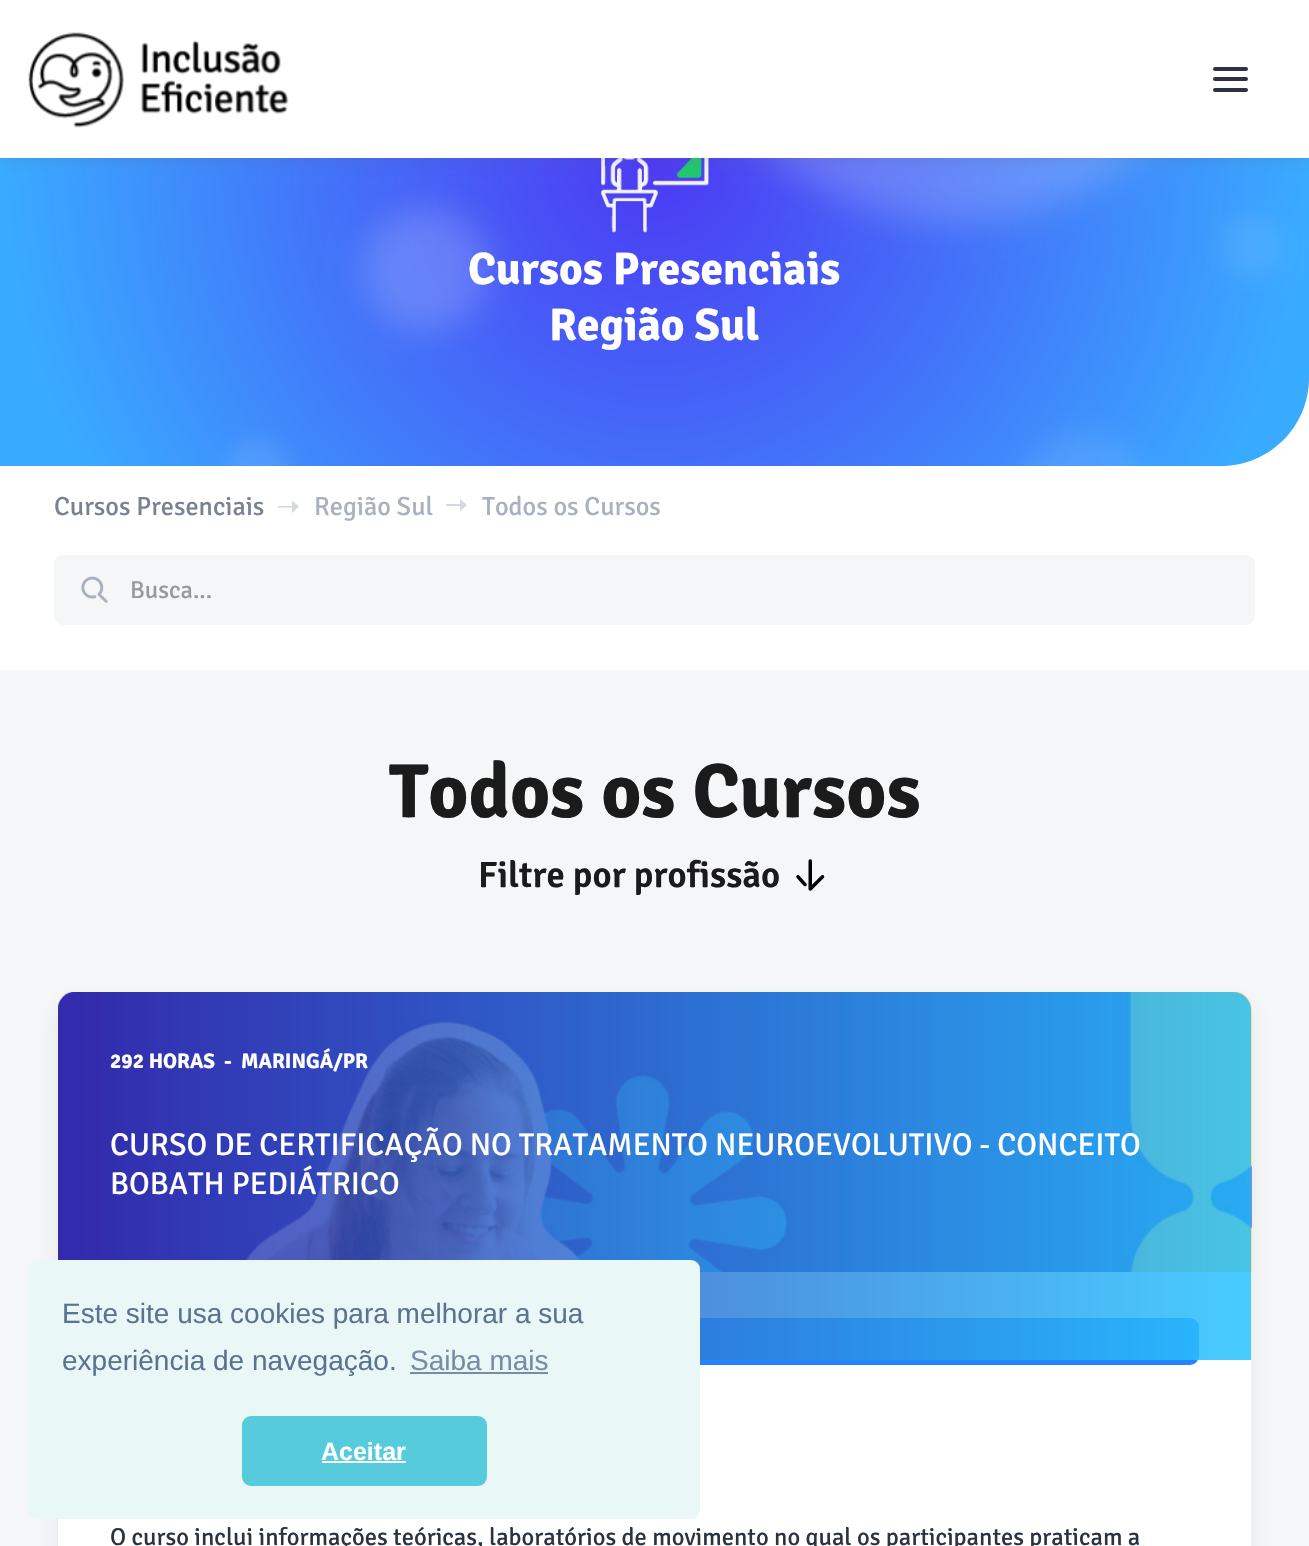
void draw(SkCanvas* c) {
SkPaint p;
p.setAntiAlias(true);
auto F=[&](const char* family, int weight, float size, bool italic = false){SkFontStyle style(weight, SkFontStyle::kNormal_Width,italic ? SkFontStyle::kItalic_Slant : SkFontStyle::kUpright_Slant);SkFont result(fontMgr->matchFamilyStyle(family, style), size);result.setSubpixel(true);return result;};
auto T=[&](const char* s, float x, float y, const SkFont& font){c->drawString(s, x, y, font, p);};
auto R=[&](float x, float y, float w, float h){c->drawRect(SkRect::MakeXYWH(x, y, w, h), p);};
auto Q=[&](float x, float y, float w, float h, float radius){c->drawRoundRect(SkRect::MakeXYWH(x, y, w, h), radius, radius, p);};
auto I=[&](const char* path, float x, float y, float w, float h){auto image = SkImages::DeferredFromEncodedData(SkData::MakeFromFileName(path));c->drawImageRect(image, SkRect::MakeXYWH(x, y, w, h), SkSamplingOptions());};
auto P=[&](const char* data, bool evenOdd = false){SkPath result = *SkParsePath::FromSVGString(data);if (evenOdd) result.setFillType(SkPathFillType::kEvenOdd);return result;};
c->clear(0xffffffff);
{
const SkColor colors[] = {0xff4c39f3,0xff39abff};
const float stops[] = {0,1};
p.setShader(SkGradientShader::MakeRadial({655,161}, 655, colors, stops, 2, SkTileMode::kClamp));
p.setAlpha(255);
}
c->drawPath(P("M0-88h1309v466c0 48.5-39.5 88-88 88h-1221z"),p);
p.setShader(nullptr);
p.setColor(0x2effffff);
p.setMaskFilter(SkMaskFilter::MakeBlur(kNormal_SkBlurStyle, 17.5));
c->drawRoundRect(SkRect::MakeXYWH(677,-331,557,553),278,278,p);
p.setMaskFilter(nullptr);
I("2.png",601,158,108,75);
p.setColor(0x33596273);
p.setMaskFilter(SkMaskFilter::MakeBlur(kNormal_SkBlurStyle, 9));
c->drawRect(SkRect::MakeXYWH(2,0,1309,158),p);
p.setMaskFilter(nullptr);
p.setColor(0x2effffff);
p.setMaskFilter(SkMaskFilter::MakeBlur(kNormal_SkBlurStyle, 17.5));
c->drawRoundRect(SkRect::MakeXYWH(364,208,124,123),61.5,61.5,p);
p.setMaskFilter(nullptr);
p.setColor(0xffffffff);
R(0,0,1309,158);
I("1.png",28,32,261,96);
p.setColor(0xff2c3340);
Q(1213,67,35,4,2);
Q(1213,77,35,4,2);
Q(1213,88,35,4,2);
p.setColor(0x14ffffff);
p.setMaskFilter(SkMaskFilter::MakeBlur(kNormal_SkBlurStyle, 10.5));
c->drawRoundRect(SkRect::MakeXYWH(1220,215,63,62),31,31,p);
p.setMaskFilter(nullptr);
c->save();
c->clipPath(P("M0-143h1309v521c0 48.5-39.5 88-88 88h-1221z"),true);
p.setColor(0x17ffffff);
p.setMaskFilter(SkMaskFilter::MakeBlur(kNormal_SkBlurStyle, 9));
c->drawRoundRect(SkRect::MakeXYWH(226,439,63,62),31,31,p);
p.setMaskFilter(nullptr);
p.setMaskFilter(SkMaskFilter::MakeBlur(kNormal_SkBlurStyle, 14));
c->drawRoundRect(SkRect::MakeXYWH(1020,432,125,123),61.5,61.5,p);
p.setMaskFilter(nullptr);
c->restore();
auto f1 = F("Signika",700,45.5);
p.setColor(0xffffffff);
T("Cursos Presenciais",468,284,f1);
T("Região Sul",549,340,f1);
auto f2 = F("Signika",400,26.25);
p.setColor(0xff7a8292);
T("Cursos Presenciais",54,515,f2);
p.setColor(0xffd3d8e1);
c->drawPath(P("M292 506v-5.5l7 6l-7 6.5v-5.5h-14v-1.5z",true),p);
p.setColor(0xffa9b0be);
T("Região Sul",314,515,f2);
p.setColor(0xffd3d8e1);
c->drawPath(P("M460 504v-5l7 6l-7 6v-5h-14v-2z",true),p);
p.setColor(0xffa9b0be);
T("Todos os Cursos",482,515,f2);
p.setColor(0xfff5f6f8);
Q(54,555,1201,70,9);
I("3.png",81,576,27,27);
auto f3 = F("Signika",400,24.5);
p.setColor(0xff999999);
T("Busca...",130,598,f3);
p.setColor(0xfff5f6f8);
R(0,670,1309,876);
auto f4 = F("Signika",700,77);
p.setColor(0xff1b1b1b);
T("Todos os Cursos",389,817,f4);
auto f5 = F("Signika",600,36.75);
T("Filtre por profissão",478,887,f5);
I("4.png",796,859,29,32);
p.setColor(0x1a596273);
p.setMaskFilter(SkMaskFilter::MakeBlur(kNormal_SkBlurStyle, 10.5));
c->drawRoundRect(SkRect::MakeXYWH(58,1003,1193,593),18,18,p);
p.setMaskFilter(nullptr);
p.setColor(0xffffffff);
Q(58,992,1193,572,18);
I("5.png",58,992,1194,280);
p.setColor(0xff2583fd);
Q(110,1318,1089,47,9);
{
const SkColor colors[] = {0xd93529aa,0xd928c3ff};
const float stops[] = {0,1};
const SkPoint ends[] = {{58,1176}, {1251,1176}};
p.setShader(SkGradientShader::MakeLinear(ends, colors, stops, 2, SkTileMode::kClamp));
p.setAlpha(255);
}
c->drawPath(P("M76 992h1157c10 0 18 8 18 18v350h-1193v-350c0-10 8-18 18-18z"),p);
auto f6 = F("Signika",700,21);
p.setShader(nullptr);
p.setColor(0xffffffff);
T("292 HORAS",110,1068,f6);
T("-",224,1068,f6);
T("MARINGÁ/PR",241,1068,f6);
auto f7 = F("Signika",400,31.5);
T("CURSO DE CERTIFICAÇÃO NO TRATAMENTO NEUROEVOLUTIVO - CONCEITO",110,1155,f7);
T("BOBATH PEDIÁTRICO",110,1194,f7);
p.setColor(0xff2c3340);
T("O curso inclui informações teóricas, laboratórios de movimento no qual os participantes praticam a",110,1545,f3);
p.setColor(0xffeaf7f7);
Q(28,1260,672,259,9);
auto f8 = F("Liberation Sans",400,28);
p.setColor(0xff5c7291);
T("Este site usa cookies para melhorar a sua",62,1323,f8);
T("experiência de navegação.",62,1370,f8);
p.setColor(0xff788da5);
T("Saiba mais",410,1370,f8);
R(410,1372,138,2);
p.setColor(0xff56cbdb);
Q(242,1416,245,70,9);
auto f9 = F("Liberation Sans",700,25);
p.setColor(0xffffffff);
T("Aceitar",321,1460,f9);
R(322,1461,84,2);
}
